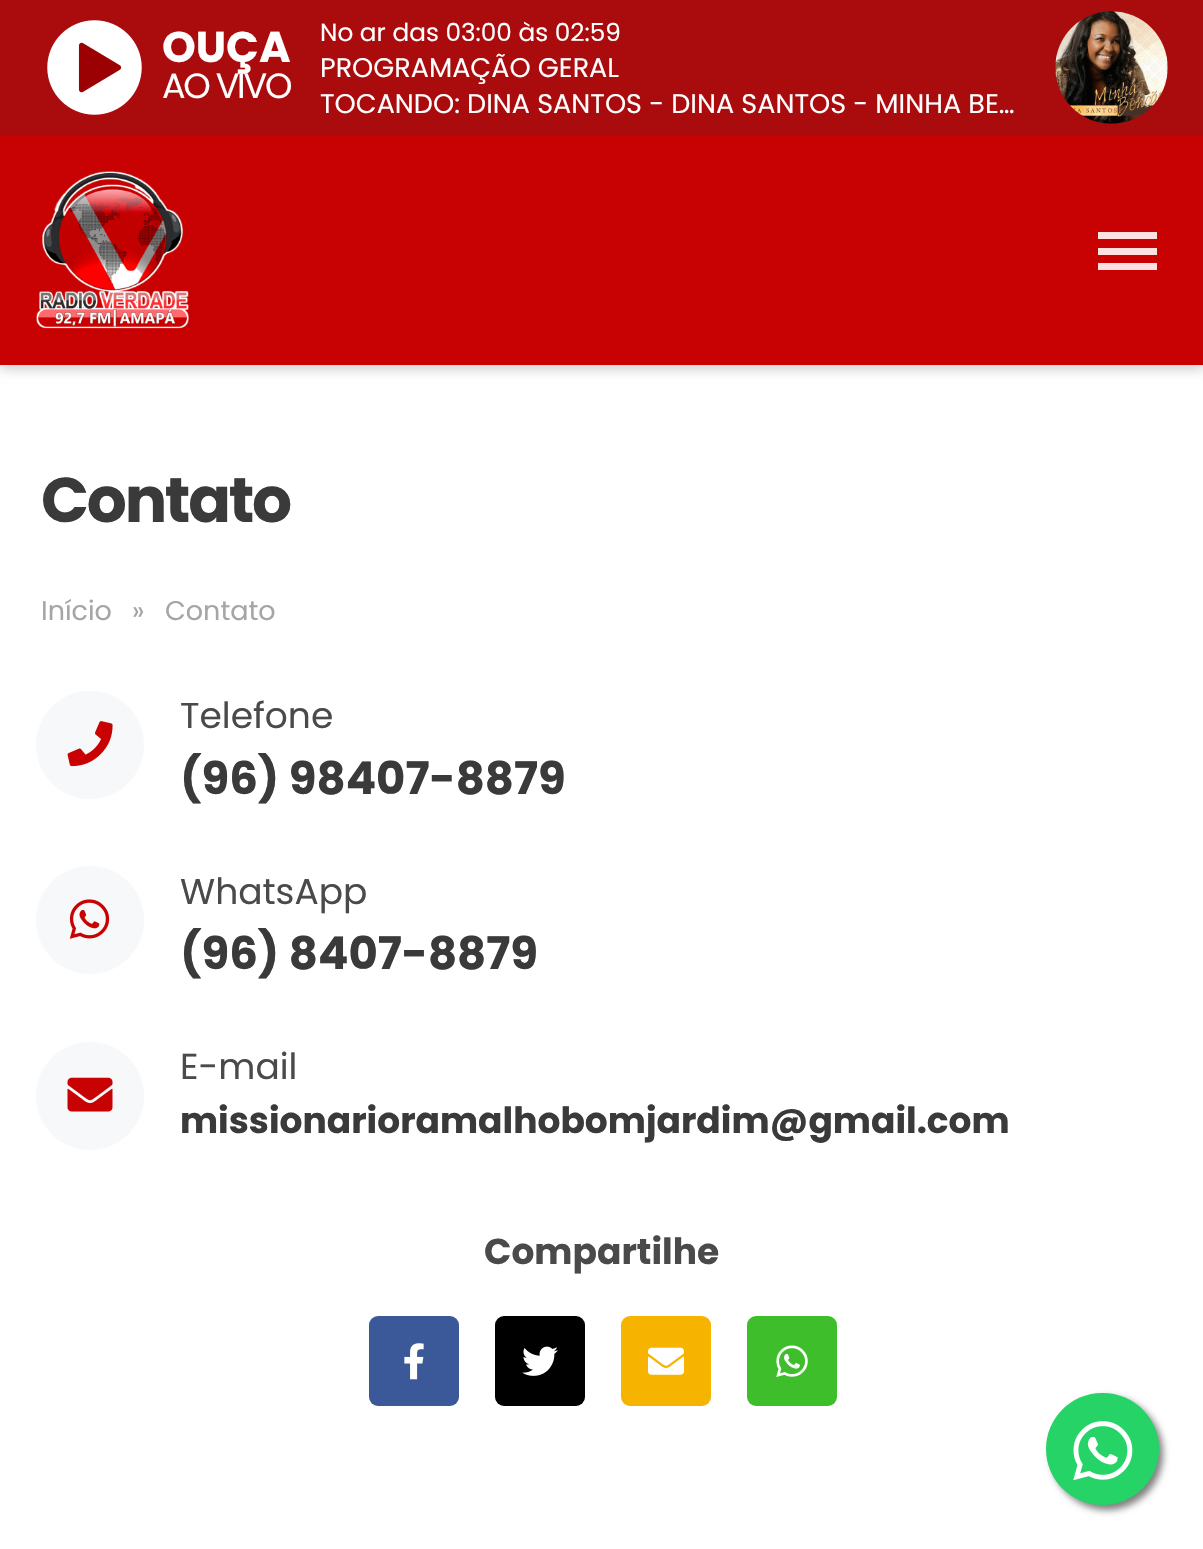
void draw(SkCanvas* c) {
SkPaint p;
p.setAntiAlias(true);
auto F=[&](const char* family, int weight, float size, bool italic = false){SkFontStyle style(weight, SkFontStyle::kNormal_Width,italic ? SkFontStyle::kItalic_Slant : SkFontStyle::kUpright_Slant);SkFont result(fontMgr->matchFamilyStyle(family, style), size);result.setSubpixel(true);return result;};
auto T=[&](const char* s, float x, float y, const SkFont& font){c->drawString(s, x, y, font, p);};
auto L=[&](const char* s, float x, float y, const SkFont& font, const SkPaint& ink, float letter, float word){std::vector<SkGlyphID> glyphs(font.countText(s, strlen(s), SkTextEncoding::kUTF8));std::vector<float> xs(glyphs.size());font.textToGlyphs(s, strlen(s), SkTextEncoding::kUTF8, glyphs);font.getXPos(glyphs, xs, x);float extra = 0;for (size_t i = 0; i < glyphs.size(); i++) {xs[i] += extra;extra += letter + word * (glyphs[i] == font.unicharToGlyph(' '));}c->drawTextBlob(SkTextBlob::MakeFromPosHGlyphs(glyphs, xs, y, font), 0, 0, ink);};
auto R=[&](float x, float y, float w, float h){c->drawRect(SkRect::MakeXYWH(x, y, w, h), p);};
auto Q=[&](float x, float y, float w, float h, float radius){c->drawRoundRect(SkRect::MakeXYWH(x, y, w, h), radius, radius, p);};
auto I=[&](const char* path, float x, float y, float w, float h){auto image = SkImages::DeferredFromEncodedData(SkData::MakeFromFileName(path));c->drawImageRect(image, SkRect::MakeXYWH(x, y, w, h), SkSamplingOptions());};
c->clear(0xffffffff);
p.setColor(0x33000000);
p.setMaskFilter(SkMaskFilter::MakeBlur(kNormal_SkBlurStyle, 5.5));
c->drawRect(SkRect::MakeXYWH(0,5,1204,364),p);
p.setMaskFilter(nullptr);
p.setColor(0xffc80202);
R(0,135,1203,230);
p.setColor(0xffaa0b0c);
R(0,0,1203,135);
I("1.png",47,20,95,95);
auto f1 = F("Poppins",700,43);
p.setColor(0xffffffff);
T("OUÇA",162,62,f1);
auto f2 = F("Poppins",400,35);
L("AO VIVO",162,98,f2,p,-2.25,0);
auto f3 = F("Poppins",400,24.75);
T("No ar das 03:00 às 02:59",320,41,f3);
auto f4 = F("Poppins",400,27);
T("PROGRAMAÇÃO GERAL",320,77,f4);
T("TOCANDO: DINA SANTOS - DINA SANTOS - MINHA BE…",320,113,f4);
I("2.png",1055,11,113,113);
I("3.png",36,171,153,158);
p.setColor(0xffffe0e0);
R(1098,232,59,7);
R(1098,248,59,7);
R(1098,263,59,7);
auto f5 = F("Poppins",700,63);
p.setColor(0xff3a3a3a);
L("Contato",41,522,f5,p,-2.25,0);
p.setColor(0xffa5a5a5);
T("Início",41,620,f4);
T("»",132,620,f4);
T("Contato",165,620,f4);
p.setColor(0xfff6f8fa);
c->drawCircle(90,745,54,p);
I("4.png",67,721,46,46);
auto f6 = F("Poppins",400,36);
p.setColor(0xff4a4a4a);
T("Telefone",180,728,f6);
auto f7 = F("Poppins",700,45);
p.setColor(0xff3a3a3a);
T("(96) 98407-8879",180,794,f7);
p.setColor(0xfff6f8fa);
c->drawCircle(90,920,54,p);
I("5.png",69,899,41,40);
p.setColor(0xff4a4a4a);
T("WhatsApp",180,904,f6);
p.setColor(0xff3a3a3a);
T("(96) 8407-8879",180,969,f7);
p.setColor(0xfff6f8fa);
c->drawCircle(90,1096,54,p);
I("6.png",67,1077,46,35);
p.setColor(0xff4a4a4a);
T("E-mail",180,1079,f6);
auto f8 = F("Poppins",700,36);
p.setColor(0xff3a3a3a);
T("missionarioramalhobomjardim@gmail.com",180,1133,f8);
p.setColor(0xff4a4a4a);
T("Compartilhe",484,1264,f8);
p.setColor(0xff3b5998);
Q(369,1316,90,90,9);
I("7.png",404,1343,20,37);
p.setColor(0xff000000);
Q(495,1316,90,90,9);
I("8.png",522,1346,36,30);
p.setColor(0xfff6b300);
Q(621,1316,90,90,9);
I("9.png",648,1347,36,28);
p.setColor(0xff3ebe2b);
Q(747,1316,90,90,9);
I("10.png",776,1345,32,32);
p.setColor(0x80000000);
p.setMaskFilter(SkMaskFilter::MakeBlur(kNormal_SkBlurStyle, 3.5));
c->drawRoundRect(SkRect::MakeXYWH(1051,1397,112,113),56,56,p);
p.setMaskFilter(nullptr);
p.setColor(0xff25d366);
Q(1046,1393,113,112,56);
I("11.png",1073,1421,60,60);
}
